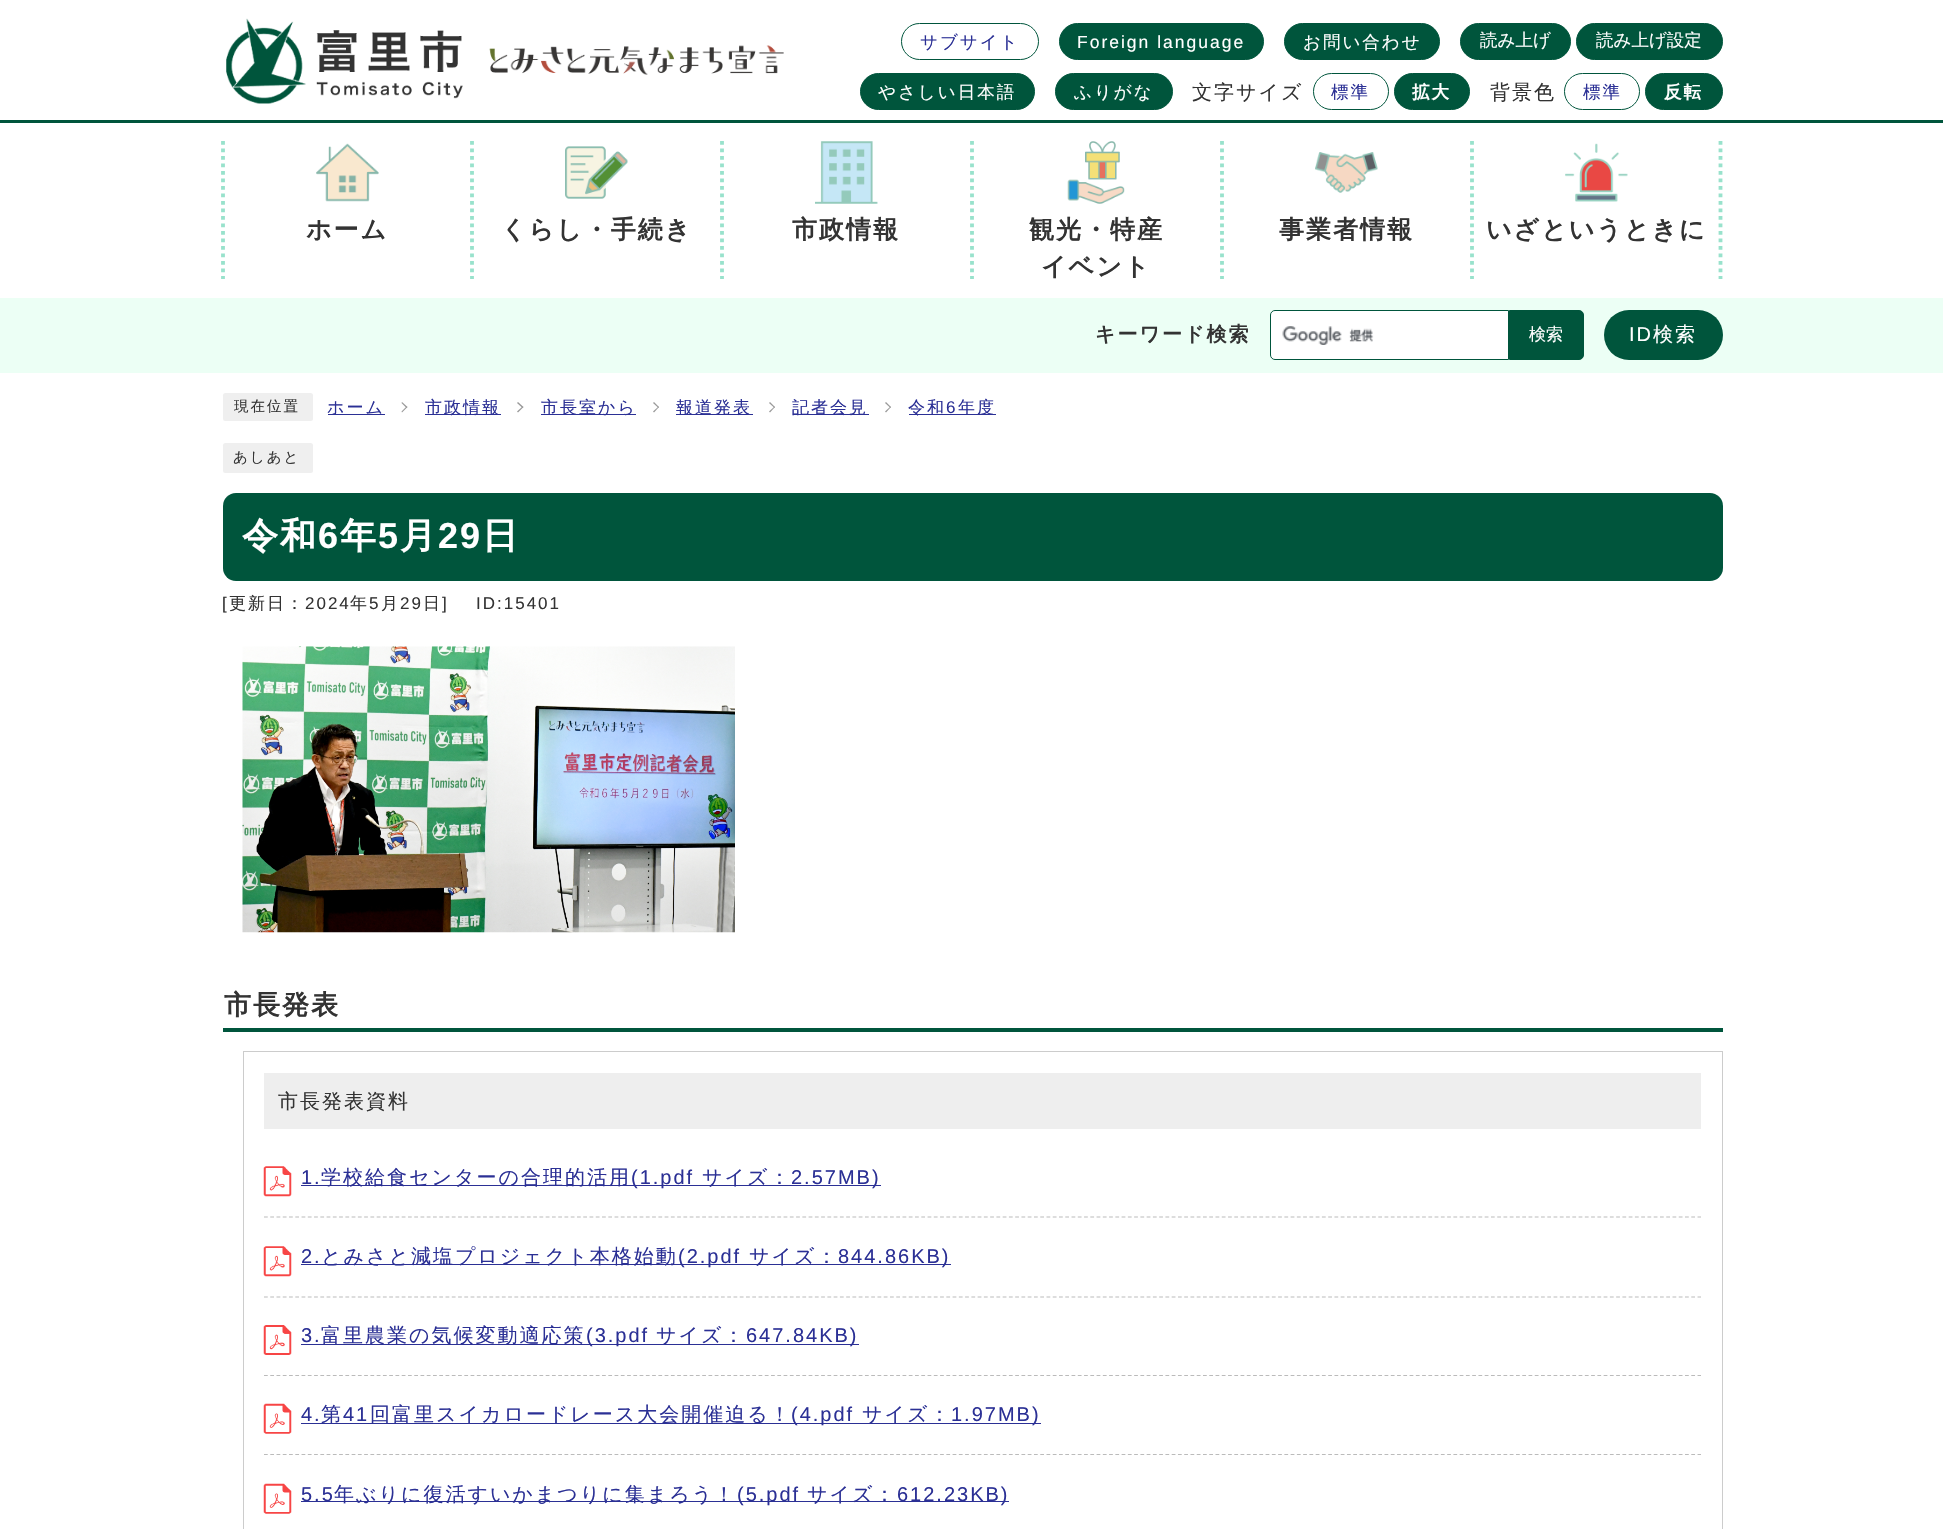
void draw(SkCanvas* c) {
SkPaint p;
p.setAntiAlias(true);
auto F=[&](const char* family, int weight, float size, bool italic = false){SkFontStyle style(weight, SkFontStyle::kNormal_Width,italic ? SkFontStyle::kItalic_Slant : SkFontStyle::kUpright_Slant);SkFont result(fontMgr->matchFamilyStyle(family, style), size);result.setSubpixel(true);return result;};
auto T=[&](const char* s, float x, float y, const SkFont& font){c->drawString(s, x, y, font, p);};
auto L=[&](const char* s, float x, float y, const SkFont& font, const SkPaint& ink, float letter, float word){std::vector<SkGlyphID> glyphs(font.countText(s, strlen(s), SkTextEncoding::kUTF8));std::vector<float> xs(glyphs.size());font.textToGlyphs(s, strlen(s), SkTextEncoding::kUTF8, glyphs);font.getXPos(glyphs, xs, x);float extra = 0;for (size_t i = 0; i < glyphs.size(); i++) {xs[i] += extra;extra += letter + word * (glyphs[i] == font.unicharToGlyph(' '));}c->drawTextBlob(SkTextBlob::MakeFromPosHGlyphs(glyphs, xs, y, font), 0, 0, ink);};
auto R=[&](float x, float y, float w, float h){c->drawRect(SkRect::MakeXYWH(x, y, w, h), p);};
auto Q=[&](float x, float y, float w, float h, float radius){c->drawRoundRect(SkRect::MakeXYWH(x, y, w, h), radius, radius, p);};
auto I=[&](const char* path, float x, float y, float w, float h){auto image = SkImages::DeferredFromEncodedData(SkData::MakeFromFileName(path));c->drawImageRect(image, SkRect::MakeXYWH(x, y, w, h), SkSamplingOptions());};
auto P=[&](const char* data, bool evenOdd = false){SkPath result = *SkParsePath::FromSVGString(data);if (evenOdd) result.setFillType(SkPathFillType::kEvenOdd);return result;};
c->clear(0xffffffff);
p.setColor(0xff00553c);
R(0,120,1943,3);
I("1.png",226,18,237,86);
I("2.png",489,45,295,30);
p.setStroke(true);
p.setStrokeWidth(1);
c->drawRoundRect(SkRect::MakeXYWH(901.5,23.5,137,36),18,18,p);
auto f1 = F("WenQuanYi Zen Hei",500,17.5);
p.setStroke(false);
p.setColor(0xff2b3095);
L("サブサイト",920,48,f1,p,2,0);
p.setColor(0xff00553c);
c->drawRoundRect(SkRect::MakeXYWH(1059.5,23.5,204,36),18,18,p);
p.setStroke(true);
c->drawRoundRect(SkRect::MakeXYWH(1059.5,23.5,204,36),18,18,p);
auto f2 = F("Liberation Sans",400,17.5);
p.setStroke(false);
p.setColor(0xffffffff);
L("Foreign language",1077,48,f2,p,2,0);
p.setColor(0xff00553c);
c->drawRoundRect(SkRect::MakeXYWH(1284.5,23.5,155,36),18,18,p);
p.setStroke(true);
c->drawRoundRect(SkRect::MakeXYWH(1284.5,23.5,155,36),18,18,p);
p.setStroke(false);
p.setColor(0xffffffff);
L("お問い合わせ",1303,48,f1,p,2,0);
p.setColor(0xff00553c);
c->drawRoundRect(SkRect::MakeXYWH(1460.5,23.5,110,36),18,18,p);
p.setStroke(true);
c->drawRoundRect(SkRect::MakeXYWH(1460.5,23.5,110,36),18,18,p);
p.setStroke(false);
p.setColor(0xffffffff);
T("読み上げ",1480,46,f1);
p.setColor(0xff00553c);
c->drawRoundRect(SkRect::MakeXYWH(1576.5,23.5,146,36),18,18,p);
p.setStroke(true);
c->drawRoundRect(SkRect::MakeXYWH(1576.5,23.5,146,36),18,18,p);
p.setStroke(false);
p.setColor(0xffffffff);
T("読み上げ設定",1596,46,f1);
p.setColor(0xff00553c);
c->drawRoundRect(SkRect::MakeXYWH(860.5,73.5,174,36),18,18,p);
p.setStroke(true);
c->drawRoundRect(SkRect::MakeXYWH(860.5,73.5,174,36),18,18,p);
p.setStroke(false);
p.setColor(0xffffffff);
L("やさしい日本語",878,98,f1,p,2,0);
p.setColor(0xff00553c);
c->drawRoundRect(SkRect::MakeXYWH(1055.5,73.5,117,36),18,18,p);
p.setStroke(true);
c->drawRoundRect(SkRect::MakeXYWH(1055.5,73.5,117,36),18,18,p);
p.setStroke(false);
p.setColor(0xffffffff);
L("ふりがな",1074,98,f1,p,2,0);
auto f3 = F("WenQuanYi Zen Hei",500,20);
p.setColor(0xff333333);
L("文字サイズ",1192,99,f3,p,2,0);
p.setStroke(true);
p.setColor(0xff00553c);
c->drawRoundRect(SkRect::MakeXYWH(1313.5,73.5,75,36),18,18,p);
p.setStroke(false);
p.setColor(0xff2b3095);
L("標準",1331,98,f1,p,2,0);
p.setColor(0xff00553c);
c->drawRoundRect(SkRect::MakeXYWH(1394.5,73.5,75,36),18,18,p);
p.setStroke(true);
c->drawRoundRect(SkRect::MakeXYWH(1394.5,73.5,75,36),18,18,p);
auto f4 = F("WenQuanYi Zen Hei",700,17.5);
p.setStroke(false);
p.setColor(0xffffffff);
L("拡大",1412,98,f4,p,2,0);
p.setColor(0xff333333);
L("背景色",1490,99,f3,p,2,0);
p.setStroke(true);
p.setColor(0xff00553c);
c->drawRoundRect(SkRect::MakeXYWH(1564.5,73.5,75,36),18,18,p);
p.setStroke(false);
p.setColor(0xff2b3095);
L("標準",1583,98,f1,p,2,0);
p.setColor(0xff00553c);
c->drawRoundRect(SkRect::MakeXYWH(1645.5,73.5,77,36),18,18,p);
p.setStroke(true);
c->drawRoundRect(SkRect::MakeXYWH(1645.5,73.5,77,36),18,18,p);
p.setStroke(false);
p.setColor(0xffffffff);
L("反転",1664,98,f4,p,2,0);
I("3.png",316,143,63,59);
p.setStroke(true);
p.setStrokeWidth(3.8);
p.setColor(0xff98e2cc);
p.setPathEffect(SkDashPathEffect::Make({{3.75f,3.75f}}, 0));
c->drawPath(P("M223 141v138"),p);
p.setPathEffect(nullptr);
auto f5 = F("WenQuanYi Zen Hei",700,25);
p.setStroke(false);
p.setColor(0xff333333);
L("ホーム",306,238,f5,p,2,0);
I("4.png",565,146,63,53);
p.setStroke(true);
p.setColor(0xff98e2cc);
p.setPathEffect(SkDashPathEffect::Make({{3.75f,3.75f}}, 0));
c->drawPath(P("M472 141v138"),p);
p.setPathEffect(nullptr);
p.setStroke(false);
p.setColor(0xff333333);
L("くらし・手続き",501,238,f5,p,2,0);
I("5.png",815,141,63,63);
p.setStroke(true);
p.setColor(0xff98e2cc);
p.setPathEffect(SkDashPathEffect::Make({{3.75f,3.75f}}, 0));
c->drawPath(P("M722 141v138"),p);
p.setPathEffect(nullptr);
p.setStroke(false);
p.setColor(0xff333333);
L("市政情報",792,238,f5,p,2,0);
I("6.png",1067,141,58,63);
p.setStroke(true);
p.setColor(0xff98e2cc);
p.setPathEffect(SkDashPathEffect::Make({{3.75f,3.75f}}, 0));
c->drawPath(P("M972 141v138"),p);
p.setPathEffect(nullptr);
p.setStroke(false);
p.setColor(0xff333333);
L("観光・特産",1029,238,f5,p,2,0);
L("イベント",1041,275,f5,p,2,0);
I("7.png",1315,152,63,41);
p.setStroke(true);
p.setColor(0xff98e2cc);
p.setPathEffect(SkDashPathEffect::Make({{3.75f,3.75f}}, 0));
c->drawPath(P("M1222 141v138"),p);
p.setPathEffect(nullptr);
p.setStroke(false);
p.setColor(0xff333333);
L("事業者情報",1279,238,f5,p,2,0);
I("8.png",1565,143,63,59);
p.setStroke(true);
p.setColor(0xff98e2cc);
p.setPathEffect(SkDashPathEffect::Make({{3.75f,3.75f}}, 0));
c->drawPath(P("M1472 141v138"),p);
p.setPathEffect(nullptr);
p.setStroke(false);
p.setColor(0xff333333);
L("いざというときに",1486,238,f5,p,2,0);
p.setStroke(true);
p.setColor(0xff98e2cc);
p.setPathEffect(SkDashPathEffect::Make({{3.75f,3.75f}}, 0));
c->drawPath(P("M1720.5 141v138"),p);
p.setPathEffect(nullptr);
p.setStroke(false);
p.setColor(0xffecfff5);
R(0,298,1943,75);
auto f6 = F("WenQuanYi Zen Hei",700,20);
p.setColor(0xff333333);
L("キーワード検索",1095,341,f6,p,2,0);
p.setColor(0xffffffff);
c->drawPath(P("M1275 310h234v50h-234c-3 0-5-2-5-5v-40c0-3 2-5 5-5z"),p);
I("9.png",1282,326,92,19);
p.setStroke(true);
p.setStrokeWidth(1);
p.setColor(0xff00553c);
c->drawPath(P("M1275 310.5h233.5v49h-233.5c-2.5 0-4.5-2-4.5-4.5v-40c0-2.5 2-4.5 4.5-4.5z"),p);
p.setStroke(false);
c->drawPath(P("M1509.5 310.5h69.5c2.5 0 4.5 2 4.5 4.5v40c0 2.5-2 4.5-4.5 4.5h-69.5z"),p);
p.setStroke(true);
c->drawPath(P("M1509.5 310.5h69.5c2.5 0 4.5 2 4.5 4.5v40c0 2.5-2 4.5-4.5 4.5h-69.5z"),p);
auto f7 = F("WenQuanYi Zen Hei",500,17);
p.setStroke(false);
p.setColor(0xffffffff);
T("検索",1529,340,f7);
p.setColor(0xff00553c);
Q(1604,310,119,50,25);
auto f8 = F("Liberation Sans",400,20);
p.setColor(0xffffffff);
L("ID",1629,341,f8,p,2,0);
L("検索",1653,341,f3,p,2,0);
p.setColor(0xffefefef);
Q(223,393,90,28,2.5);
auto f9 = F("WenQuanYi Zen Hei",500,14.5);
p.setColor(0xff333333);
L("現在位置",234,411,f9,p,2,0);
p.setColor(0xff2b3095);
R(328,414,57,1);
L("ホーム",327,413,f7,p,2,0);
p.setColor(0xff999999);
c->drawPath(P("M401.5 403l.5-1l5.5 5l-1 1z"),p);
c->drawPath(P("M401.5 411.5l5-5l1 .5l-5.5 5.5z"),p);
p.setColor(0xff2b3095);
R(425,414,76,1);
L("市政情報",425,413,f7,p,2,0);
p.setColor(0xff999999);
c->drawPath(P("M517 403l1-1l5.5 5l-1 1z"),p);
c->drawPath(P("M517 411.5l5.5-5l1 .5l-5.5 5.5z"),p);
p.setColor(0xff2b3095);
R(541,414,95,1);
L("市長室から",541,413,f7,p,2,0);
p.setColor(0xff999999);
c->drawPath(P("M653 403l1-1l5 5l-.5 1z"),p);
c->drawPath(P("M653 411.5l5.5-5l.5 .5l-5 5.5z"),p);
p.setColor(0xff2b3095);
R(676,414,77,1);
L("報道発表",676,413,f7,p,2,0);
p.setColor(0xff999999);
c->drawPath(P("M769 403l1-1l5 5l-.5 1z"),p);
c->drawPath(P("M769 411.5l5.5-5l.5 .5l-5 5.5z"),p);
p.setColor(0xff2b3095);
R(793,414,76,1);
L("記者会見",792,413,f7,p,2,0);
p.setColor(0xff999999);
c->drawPath(P("M885 403l1-1l5 5l-.5 1z"),p);
c->drawPath(P("M885 411.5l5.5-5l.5 .5l-5 5.5z"),p);
p.setColor(0xff2b3095);
R(909,414,87,1);
L("令和",908,413,f7,p,2,0);
auto f10 = F("Liberation Sans",400,17);
L("6",946,413,f10,p,2,0);
L("年度",958,413,f7,p,2,0);
p.setColor(0xffefefef);
Q(223,443,90,30,2.5);
p.setColor(0xff333333);
L("あしあと",233,462,f9,p,2,0);
p.setColor(0xff00553c);
Q(223,493,1500,88,13);
auto f11 = F("WenQuanYi Zen Hei",700,36);
p.setColor(0xffffffff);
L("令和",242,548,f11,p,2,0);
auto f12 = F("Liberation Sans",700,36);
L("6",318,548,f12,p,2,0);
L("年",340,548,f11,p,2,0);
L("5",378,548,f12,p,2,0);
L("月",400,548,f11,p,2,0);
L("29",438,548,f12,p,2,0);
L("日",482,548,f11,p,2,0);
p.setColor(0xff333333);
L("[",222,609,f10,p,2,0);
L("更新日：",229,609,f7,p,2,0);
L("2024",305,609,f10,p,2,0);
L("年",350,609,f7,p,2,0);
L("5",369,609,f10,p,2,0);
L("月",381,609,f7,p,2,0);
L("29",400,609,f10,p,2,0);
L("日",423,609,f7,p,2,0);
L("]",442,609,f10,p,2,0);
L("ID:15401",476,609,f10,p,2,0);
I("10.png",242,646,493,287);
p.setColor(0xff00553c);
R(223,1028,1500,4);
auto f13 = F("WenQuanYi Zen Hei",700,27);
p.setColor(0xff333333);
L("市長発表",224,1014,f13,p,2,0);
p.setStroke(true);
p.setColor(0xffcccccc);
c->drawRect(SkRect::MakeXYWH(243.5,1051.5,1479,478),p);
p.setStroke(false);
p.setColor(0xffeeeeee);
R(264,1073,1437,56);
p.setColor(0xff333333);
L("市長発表資料",278,1108,f3,p,2,0);
p.setStroke(true);
p.setStrokeWidth(1.2);
p.setColor(0xffbbbbbb);
p.setPathEffect(SkDashPathEffect::Make({{3.75f,2.51f}}, 0));
c->drawPath(P("M264 1217h1437"),p);
p.setPathEffect(nullptr);
I("11.png",263,1166,29,31);
p.setStroke(false);
p.setColor(0xff2b3095);
L("1.",301,1184,f8,p,2,0);
R(301,1185,580,1);
L("学校給食センターの合理的活用",321,1184,f3,p,2,0);
L("(1.pdf",631,1184,f8,p,2,0);
L("サイズ：",702,1184,f3,p,2,0);
L("2.57MB)",791,1184,f8,p,2,0);
p.setStroke(true);
p.setColor(0xffbbbbbb);
p.setPathEffect(SkDashPathEffect::Make({{3.75f,2.51f}}, 0));
c->drawPath(P("M264 1297h1437"),p);
p.setPathEffect(nullptr);
I("12.png",263,1246,29,31);
p.setStroke(false);
p.setColor(0xff2b3095);
L("2.",301,1263,f8,p,2,0);
R(301,1264,650,1);
L("とみさと減塩プロジェクト本格始動",321,1263,f3,p,2,0);
L("(2.pdf",678,1263,f8,p,2,0);
L("サイズ：",749,1263,f3,p,2,0);
L("844.86KB)",838,1263,f8,p,2,0);
p.setStroke(true);
p.setColor(0xffbbbbbb);
p.setPathEffect(SkDashPathEffect::Make({{3.75f,2.51f}}, 0));
c->drawPath(P("M264 1375.5h1437"),p);
p.setPathEffect(nullptr);
I("13.png",263,1325,29,30);
p.setStroke(false);
p.setColor(0xff2b3095);
L("3.",301,1342,f8,p,2,0);
R(301,1344,558,1);
L("富里農業の気候変動適応策",321,1342,f3,p,2,0);
L("(3.pdf",586,1342,f8,p,2,0);
L("サイズ：",656,1342,f3,p,2,0);
L("647.84KB)",746,1342,f8,p,2,0);
p.setStroke(true);
p.setColor(0xffbbbbbb);
p.setPathEffect(SkDashPathEffect::Make({{3.75f,2.51f}}, 0));
c->drawPath(P("M264 1454.5h1437"),p);
p.setPathEffect(nullptr);
I("14.png",263,1403,29,31);
p.setStroke(false);
p.setColor(0xff2b3095);
L("4.",301,1421,f8,p,2,0);
R(301,1423,740,1);
L("第",321,1421,f3,p,2,0);
L("41",343,1421,f8,p,2,0);
L("回富里スイカロードレース大会開催迫る！",370,1421,f3,p,2,0);
L("(4.pdf",791,1421,f8,p,2,0);
L("サイズ：",862,1421,f3,p,2,0);
L("1.97MB)",951,1421,f8,p,2,0);
I("14.png",263,1483,29,31);
R(301,1501,708,1);
L("5.5",301,1501,f8,p,2,0);
L("年ぶりに復活すいかまつりに集まろう！",334,1501,f3,p,2,0);
L("(5.pdf",737,1501,f8,p,2,0);
L("サイズ：",807,1501,f3,p,2,0);
L("612.23KB)",897,1501,f8,p,2,0);
}
